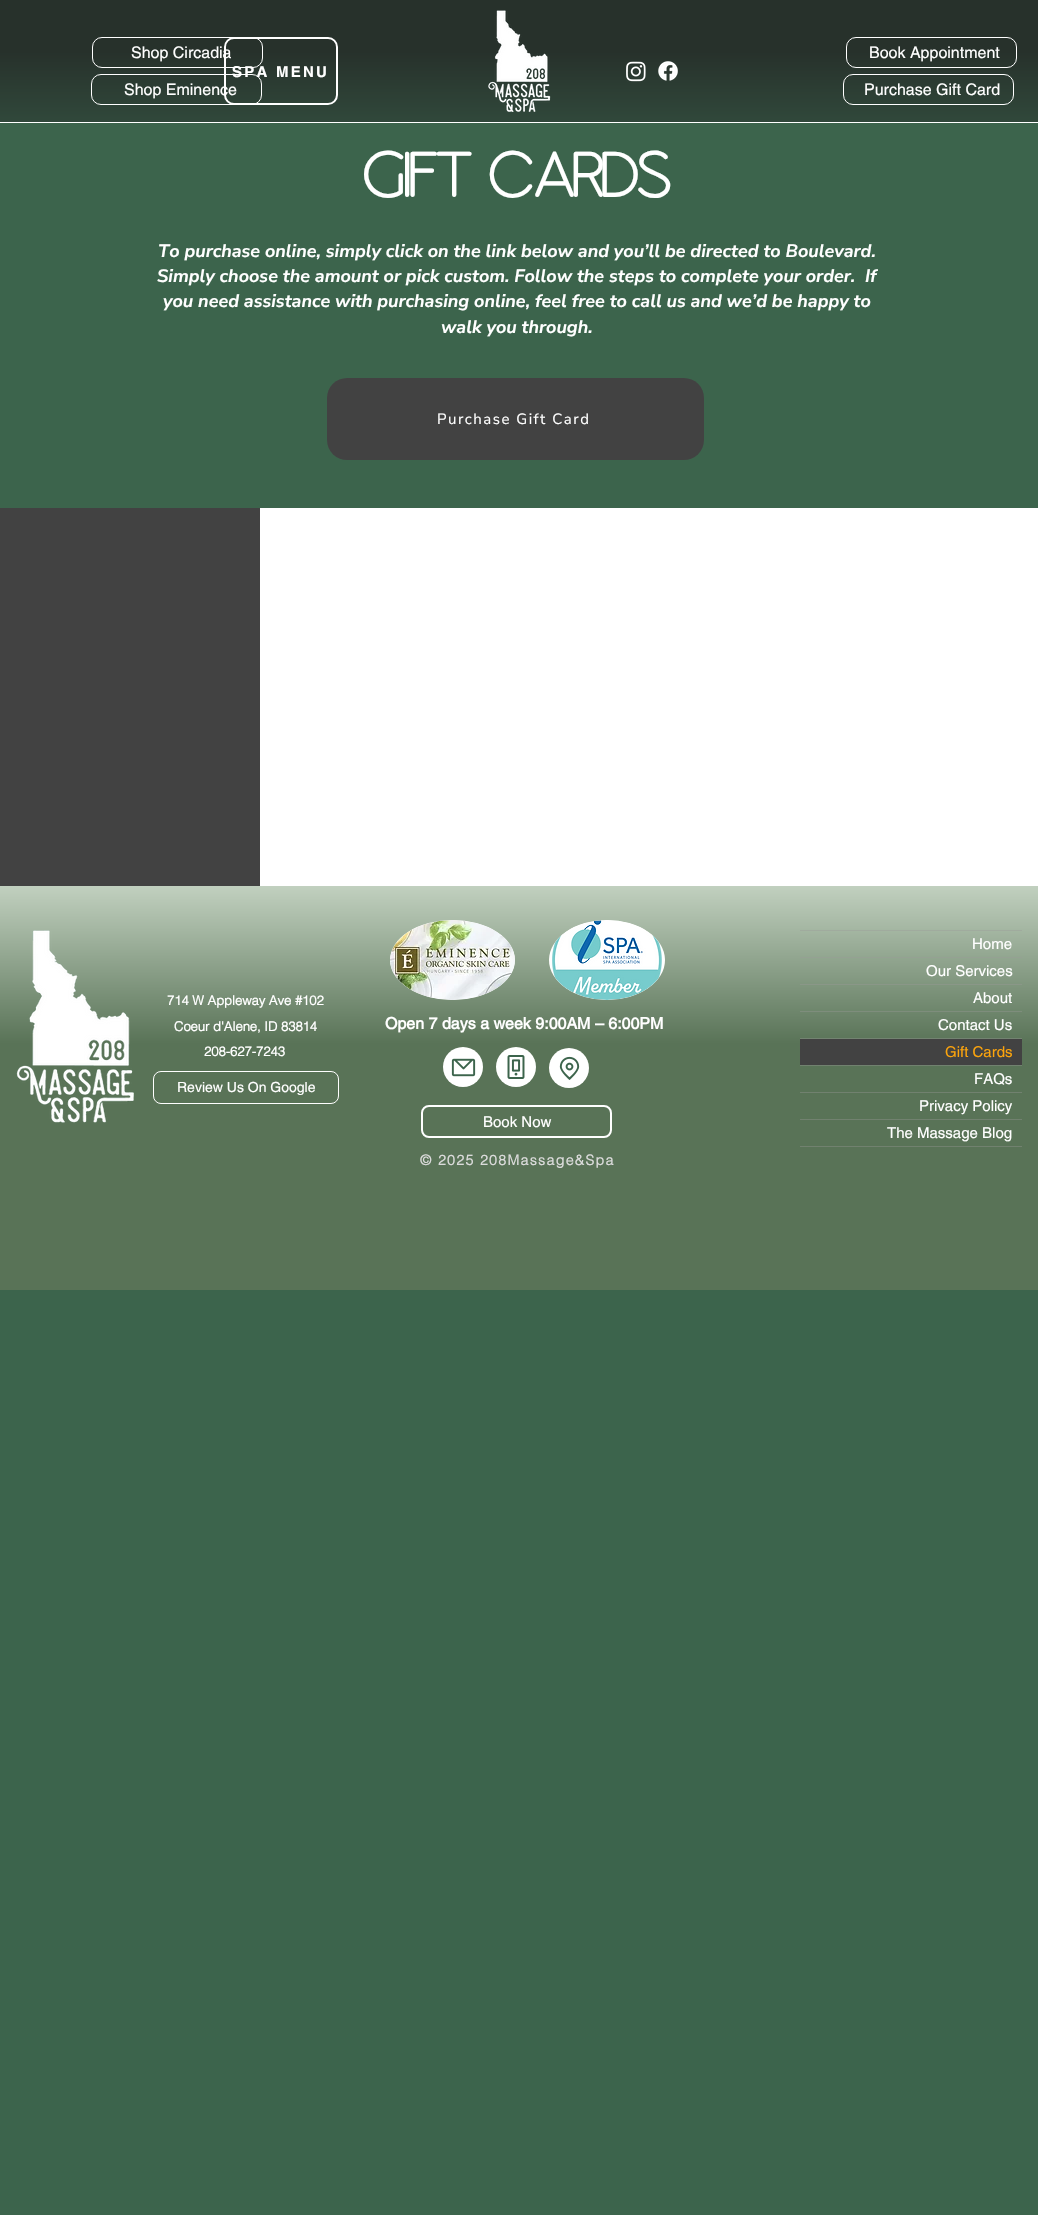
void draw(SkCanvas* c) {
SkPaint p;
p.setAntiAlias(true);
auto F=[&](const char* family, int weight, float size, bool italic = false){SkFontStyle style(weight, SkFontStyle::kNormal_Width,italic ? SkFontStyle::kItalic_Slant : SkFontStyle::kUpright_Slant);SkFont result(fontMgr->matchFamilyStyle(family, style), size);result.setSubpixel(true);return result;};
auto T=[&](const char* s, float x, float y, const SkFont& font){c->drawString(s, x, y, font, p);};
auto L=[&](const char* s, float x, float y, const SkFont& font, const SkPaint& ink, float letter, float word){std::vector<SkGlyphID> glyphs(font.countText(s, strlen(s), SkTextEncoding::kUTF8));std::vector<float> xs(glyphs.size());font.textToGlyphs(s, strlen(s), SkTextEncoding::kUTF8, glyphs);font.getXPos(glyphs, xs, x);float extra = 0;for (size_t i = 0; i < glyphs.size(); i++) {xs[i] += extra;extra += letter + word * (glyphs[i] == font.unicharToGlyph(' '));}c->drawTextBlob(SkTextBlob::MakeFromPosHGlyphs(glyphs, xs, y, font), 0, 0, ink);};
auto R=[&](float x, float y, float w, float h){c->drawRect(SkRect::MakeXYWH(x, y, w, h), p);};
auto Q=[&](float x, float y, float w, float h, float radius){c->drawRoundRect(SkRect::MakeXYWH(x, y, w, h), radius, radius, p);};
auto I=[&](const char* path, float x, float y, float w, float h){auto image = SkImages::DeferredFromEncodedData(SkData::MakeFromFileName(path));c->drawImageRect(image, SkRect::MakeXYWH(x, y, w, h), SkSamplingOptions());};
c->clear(0xff3c644c);
p.setColor(0xffffffff);
R(0,122,1038,1);
{
const SkColor colors[] = {0xff27312b,0xff30473a};
const float stops[] = {.42,.97};
const SkPoint ends[] = {{519,0}, {519,122}};
p.setShader(SkGradientShader::MakeLinear(ends, colors, stops, 2, SkTileMode::kClamp));
p.setAlpha(255);
}
R(0,0,1038,122);
p.setStroke(true);
p.setStrokeWidth(1);
p.setShader(nullptr);
p.setColor(0xffffffff);
c->drawRoundRect(SkRect::MakeXYWH(92.5,37.5,170,30),9.5,9.5,p);
auto f1 = F("helvetica",400,16);
p.setStroke(false);
T("Shop Circadia",131,58,f1);
p.setStroke(true);
c->drawRoundRect(SkRect::MakeXYWH(91.5,74.5,170,30),9.5,9.5,p);
p.setStroke(false);
T("Shop Eminence",124,95,f1);
I("1.png",488,10,63,102);
I("2.png",626,61,20,21);
I("3.png",658,61,20,20);
p.setStroke(true);
c->drawRoundRect(SkRect::MakeXYWH(846.5,37.5,170,30),9.5,9.5,p);
p.setStroke(false);
T("Book Appointment",869,58,f1);
p.setStroke(true);
c->drawRoundRect(SkRect::MakeXYWH(843.5,74.5,170,30),9.5,9.5,p);
p.setStroke(false);
T("Purchase Gift Card",864,95,f1);
p.setStroke(true);
p.setStrokeWidth(2);
c->drawRoundRect(SkRect::MakeXYWH(225,38,112,66),9,9,p);
auto f2 = F("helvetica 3",700,15);
p.setStroke(false);
L("SPA MENU",232,77,f2,p,2.25,0);
auto f3 = F("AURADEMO",700,65);
T("GIFT CARDS",364,200,f3);
auto f4 = F("Nunito Sans",700,18,true);
T("To purchase online, simply click on the link below and you’ll be directed to Boulevard.",158,257,f4);
T("Simply choose the amount or pick custom. Follow the steps to complete your order.  If",157,282,f4);
T("you need assistance with purchasing online, feel free to call us and we’d be happy to",163,307,f4);
T("walk you through.",441,333,f4);
p.setColor(0xff424242);
Q(327,378,377,82,20);
auto f5 = F("Nunito Sans",400,15);
p.setColor(0xffffffff);
L("Purchase Gift Card",437,424,f5,p,1.5,0);
p.setColor(0xff424242);
R(0,508,260,378);
p.setColor(0xffffffff);
R(260,508,778,378);
{
const SkColor colors[] = {0xff597357,0xffc1d0bf};
const float stops[] = {.61,1};
const SkPoint ends[] = {{519,1290}, {519,886}};
p.setShader(SkGradientShader::MakeLinear(ends, colors, stops, 2, SkTileMode::kClamp));
p.setAlpha(255);
}
R(0,886,1038,404);
I("4.png",16,930,118,193);
auto f6 = F("helvetica",700,13);
p.setShader(nullptr);
p.setColor(0xffffffff);
T("714 W Appleway Ave #102",167,1005,f6);
T("Coeur d'Alene, ID 83814",174,1031,f6);
T("208-627-7243",204,1056,f6);
p.setStroke(true);
p.setStrokeWidth(1);
c->drawRoundRect(SkRect::MakeXYWH(153.5,1071.5,185,32),7.5,7.5,p);
auto f7 = F("helvetica",400,14);
p.setStroke(false);
T("Review Us On Google",177,1092,f7);
c->drawOval(SkRect::MakeXYWH(390,920,125,80),p);
I("5.png",390,920,125,80);
c->drawOval(SkRect::MakeXYWH(549,920,116,80),p);
I("6.png",552,920,110,80);
auto f8 = F("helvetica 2",700,16);
T("Open 7 days a week 9:00AM – 6:00PM",385,1029,f8);
c->drawCircle(463,1067,20,p);
I("7.png",451,1058,25,19);
c->drawCircle(516,1067,20,p);
I("8.png",507,1055,18,24);
c->drawCircle(569,1068,20,p);
I("9.png",559,1056,21,24);
p.setStroke(true);
p.setStrokeWidth(2);
c->drawRoundRect(SkRect::MakeXYWH(422,1106,189,31),7,7,p);
auto f9 = F("helvetica",400,15);
p.setStroke(false);
T("Book Now",483,1127,f9);
auto f10 = F("helvetica",700,14);
p.setColor(0xffdbdbdb);
L("© 2025 208Massage&Spa",420,1165,f10,p,1.4,0);
p.setColor(0xffa0ab9e);
R(800,930,222,1);
p.setColor(0xff71816f);
R(800,1146,222,1);
p.setColor(0xff95a193);
R(800,957,222,1);
p.setColor(0xffffffff);
T("Home",972,949,f9);
p.setColor(0xff8a9788);
R(800,984,222,1);
p.setColor(0xffffffff);
T("Our Services",926,976,f9);
p.setColor(0xff7e8d7c);
R(800,1011,222,1);
p.setColor(0xffffffff);
T("About",973,1003,f9);
p.setColor(0xff738371);
R(800,1038,222,1);
p.setColor(0xffffffff);
T("Contact Us",938,1030,f9);
p.setColor(0xff71816f);
R(800,1065,222,1);
p.setColor(0xff424242);
R(800,1039,222,26);
p.setColor(0xfffca40c);
T("Gift Cards",945,1057,f9);
p.setColor(0xff71816f);
R(800,1092,222,1);
p.setColor(0xffffffff);
T("FAQs",974,1084,f9);
p.setColor(0xff71816f);
R(800,1119,222,1);
p.setColor(0xffffffff);
T("Privacy Policy",919,1111,f9);
T("The Massage Blog",887,1138,f9);
}
